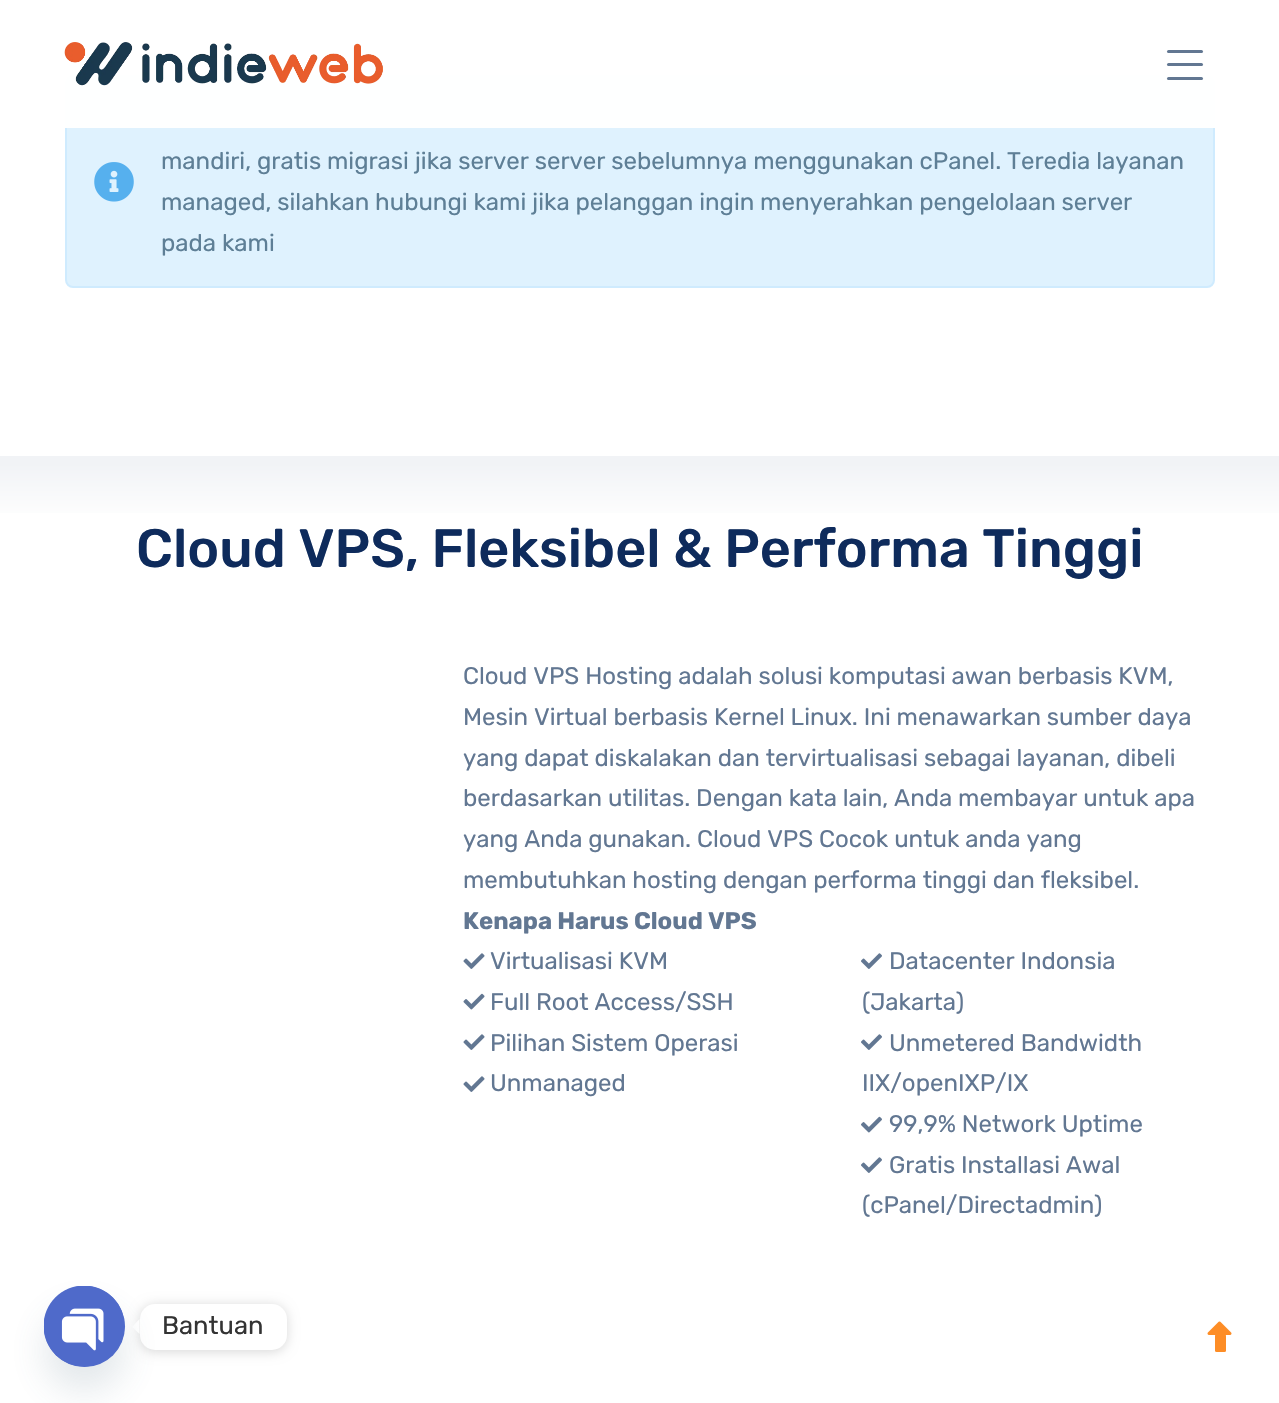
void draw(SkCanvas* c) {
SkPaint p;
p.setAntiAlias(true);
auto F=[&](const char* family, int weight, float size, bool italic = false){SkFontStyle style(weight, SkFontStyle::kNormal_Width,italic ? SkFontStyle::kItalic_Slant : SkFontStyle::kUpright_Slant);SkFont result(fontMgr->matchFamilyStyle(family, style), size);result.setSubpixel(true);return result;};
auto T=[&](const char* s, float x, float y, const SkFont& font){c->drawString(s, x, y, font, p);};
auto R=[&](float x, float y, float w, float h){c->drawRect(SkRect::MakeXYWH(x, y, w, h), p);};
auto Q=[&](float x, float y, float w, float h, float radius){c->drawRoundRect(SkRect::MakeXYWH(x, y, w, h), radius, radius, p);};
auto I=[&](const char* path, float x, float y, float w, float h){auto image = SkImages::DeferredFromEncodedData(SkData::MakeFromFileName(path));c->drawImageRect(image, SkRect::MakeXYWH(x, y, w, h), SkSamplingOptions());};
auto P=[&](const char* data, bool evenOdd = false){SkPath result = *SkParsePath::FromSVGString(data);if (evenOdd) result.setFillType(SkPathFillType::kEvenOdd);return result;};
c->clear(0xffffffff);
p.setColor(0xfff3f6f9);
Q(65,-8,1150,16,8);
p.setColor(0xffdff2fe);
c->drawRoundRect(SkRect::MakeXYWH(66,76,1148,211),7,7,p);
p.setStroke(true);
p.setStrokeWidth(2);
p.setColor(0xffcfebfe);
c->drawRoundRect(SkRect::MakeXYWH(66,76,1148,211),7,7,p);
p.setStroke(false);
p.setColor(0xf7ffffff);
R(65,0,1150,128);
I("1.png",64,42,319,44);
p.setColor(0xff627792);
Q(1167,50,36,3,1.5);
Q(1167,77,36,3,1.5);
Q(1167,63,36,3,1.5);
I("2.png",94,162,40,40);
auto f1 = F("Rubik",400,24);
p.setColor(0xff5e7f96);
T("mandiri, gratis migrasi jika server server sebelumnya menggunakan cPanel. Teredia layanan",161,169,f1);
T("managed, silahkan hubungi kami jika pelanggan ingin menyerahkan pengelolaan server",161,210,f1);
T("pada kami",161,251,f1);
{
const SkColor colors[] = {0xffffffff,0xfff1f3f6};
const float stops[] = {.1,.9};
const SkPoint ends[] = {{640,531}, {640,456}};
p.setShader(SkGradientShader::MakeLinear(ends, colors, stops, 2, SkTileMode::kClamp));
p.setAlpha(255);
}
R(0,456,1279,57);
auto f2 = F("Rubik",500,54);
p.setShader(nullptr);
p.setColor(0xff0e2b5c);
T("Cloud VPS, Fleksibel & Performa Tinggi",136,567,f2);
p.setColor(0xff627792);
T("Cloud VPS Hosting adalah solusi komputasi awan berbasis KVM,",463,684,f1);
T("Mesin Virtual berbasis Kernel Linux. Ini menawarkan sumber daya",463,725,f1);
T("yang dapat diskalakan dan tervirtualisasi sebagai layanan, dibeli",463,766,f1);
T("berdasarkan utilitas. Dengan kata lain, Anda membayar untuk apa",463,806,f1);
T("yang Anda gunakan. Cloud VPS Cocok untuk anda yang",463,847,f1);
T("membutuhkan hosting dengan performa tinggi dan fleksibel.",463,888,f1);
auto f3 = F("Rubik",700,24);
T("Kenapa Harus Cloud VPS",463,929,f3);
I("3.png",463,953,22,16);
T("Virtualisasi KVM",490,969,f1);
I("4.png",463,993,22,17);
T("Full Root Access/SSH",490,1010,f1);
I("3.png",463,1034,22,16);
T("Pilihan Sistem Operasi",490,1051,f1);
I("3.png",463,1076,22,16);
T("Unmanaged",490,1091,f1);
I("5.png",861,953,21,16);
T("Datacenter Indonsia",889,969,f1);
T("(Jakarta)",862,1010,f1);
I("5.png",861,1034,21,16);
T("Unmetered Bandwidth",889,1051,f1);
T("IIX/openIXP/IX",862,1091,f1);
I("6.png",861,1116,21,17);
T("99,9% Network Uptime",889,1132,f1);
I("5.png",861,1157,21,16);
T("Gratis Installasi Awal",889,1173,f1);
T("(cPanel/Directadmin)",862,1213,f1);
I("7.png",1207,1321,25,14);
p.setColor(0xfffd8d26);
Q(1215,1334,11,18,1.5);
p.setColor(0x26000000);
p.setMaskFilter(SkMaskFilter::MakeBlur(kNormal_SkBlurStyle, 6));
c->drawRoundRect(SkRect::MakeXYWH(140,1305,147,47),15,15,p);
p.setMaskFilter(nullptr);
p.setColor(0xffffffff);
Q(140,1304,147,46,15);
c->drawPath(P("M139.5 1319v15l-7.5-7z"),p);
p.setColor(0x2949687e);
p.setMaskFilter(SkMaskFilter::MakeBlur(kNormal_SkBlurStyle, 18));
c->drawRoundRect(SkRect::MakeXYWH(44,1310,81,81),40.5,40.5,p);
p.setMaskFilter(nullptr);
p.setColor(0xff4f6aca);
c->drawCircle(84.5,1326.5,40.5,p);
I("8.png",44,1286,81,81);
auto f4 = F("Rubik",400,25.5);
p.setColor(0xff333333);
T("Bantuan",162,1334,f4);
}
